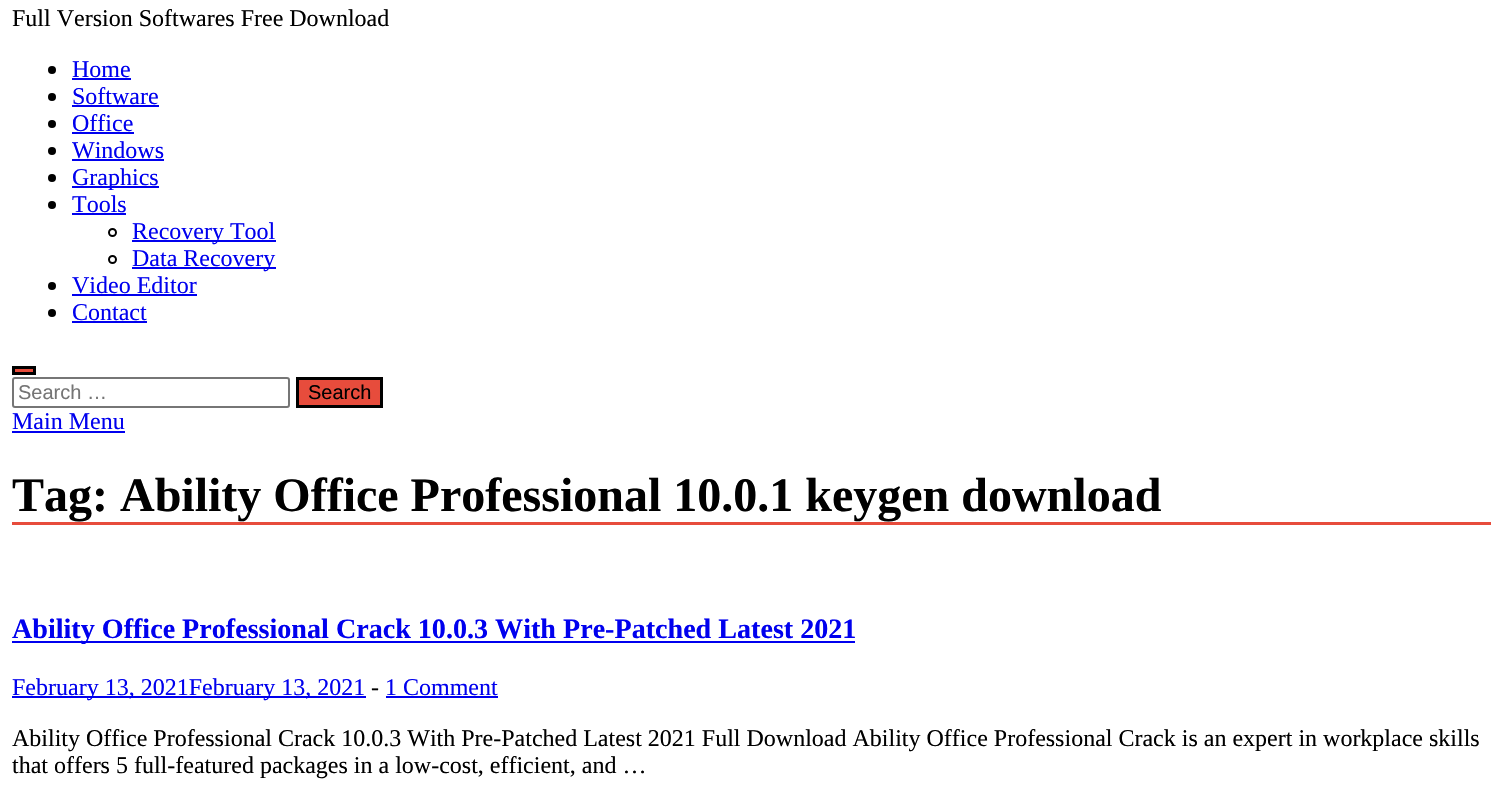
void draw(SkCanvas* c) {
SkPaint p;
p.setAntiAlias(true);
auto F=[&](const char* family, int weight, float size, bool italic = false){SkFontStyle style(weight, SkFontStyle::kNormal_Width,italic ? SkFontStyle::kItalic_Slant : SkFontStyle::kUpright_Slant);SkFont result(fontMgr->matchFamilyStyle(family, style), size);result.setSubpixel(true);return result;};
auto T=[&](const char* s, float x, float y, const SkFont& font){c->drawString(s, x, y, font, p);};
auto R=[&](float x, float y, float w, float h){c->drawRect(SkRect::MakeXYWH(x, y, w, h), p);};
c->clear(0xffffffff);
auto f1 = F("Liberation Serif",400,24);
p.setColor(0xff000000);
T("Full Version Softwares Free Download",12,26,f1);
c->drawCircle(52,70,4,p);
p.setColor(0xff0000ee);
T("Home",72,77,f1);
R(72,78,59,2);
p.setColor(0xff000000);
c->drawCircle(52,97,4,p);
p.setColor(0xff0000ee);
T("Software",72,104,f1);
R(72,105,87,2);
p.setColor(0xff000000);
c->drawCircle(52,124,4,p);
p.setColor(0xff0000ee);
T("Office",72,131,f1);
R(72,132,62,2);
p.setColor(0xff000000);
c->drawCircle(52,151,4,p);
p.setColor(0xff0000ee);
T("Windows",72,158,f1);
R(72,159,92,2);
p.setColor(0xff000000);
c->drawCircle(52,178,4,p);
p.setColor(0xff0000ee);
R(72,186,87,2);
T("Graphics",72,185,f1);
p.setColor(0xff000000);
c->drawCircle(52,205,4,p);
p.setColor(0xff0000ee);
T("Tools",72,212,f1);
R(72,213,54,2);
p.setStroke(true);
p.setStrokeWidth(2);
p.setColor(0xff000000);
c->drawCircle(112.5,232.5,3.5,p);
p.setStroke(false);
p.setColor(0xff0000ee);
R(132,240,144,2);
T("Recovery Tool",132,239,f1);
p.setStroke(true);
p.setColor(0xff000000);
c->drawCircle(112.5,259.5,3.5,p);
p.setStroke(false);
p.setColor(0xff0000ee);
R(132,267,144,2);
T("Data Recovery",132,266,f1);
p.setColor(0xff000000);
c->drawCircle(52,286,4,p);
p.setColor(0xff0000ee);
T("Video Editor",72,293,f1);
R(72,294,125,2);
p.setColor(0xff000000);
c->drawCircle(52,313,4,p);
p.setColor(0xff0000ee);
T("Contact",72,320,f1);
R(72,321,75,2);
p.setColor(0xffe74c3c);
c->drawRect(SkRect::MakeXYWH(13.5,367.5,21,6),p);
p.setStroke(true);
p.setStrokeWidth(3);
p.setColor(0xff000000);
c->drawRect(SkRect::MakeXYWH(13.5,367.5,21,6),p);
p.setStrokeWidth(2);
p.setColor(0xff767676);
c->drawRoundRect(SkRect::MakeXYWH(13,378,276,29),2,2,p);
auto f2 = F("Liberation Sans",400,20);
p.setStroke(false);
p.setColor(0xff757575);
T("Search …",18,399,f2);
p.setColor(0xffe74c3c);
c->drawRect(SkRect::MakeXYWH(297.5,378.5,84,28),p);
p.setStroke(true);
p.setStrokeWidth(3);
p.setColor(0xff000000);
c->drawRect(SkRect::MakeXYWH(297.5,378.5,84,28),p);
p.setStroke(false);
T("Search",308,399,f2);
p.setColor(0xff0000ee);
T("Main Menu",12,429,f1);
R(12,431,113,2);
p.setColor(0xffe74c3c);
R(12,522,1479,3);
auto f3 = F("Liberation Serif",700,48);
p.setColor(0xff000000);
T("Tag: Ability Office Professional 10.0.1 keygen download",12,511,f3);
p.setColor(0xff0000ee);
R(12,641,843,2);
auto f4 = F("Liberation Serif",700,28.1);
T("Ability Office Professional Crack 10.0.3 With Pre-Patched Latest 2021",12,638,f4);
R(12,696,354,2);
T("February 13, 2021February 13, 2021",12,695,f1);
p.setColor(0xff000000);
T("-",371,695,f1);
p.setColor(0xff0000ee);
T("1 Comment",385,695,f1);
R(386,696,112,2);
p.setColor(0xff000000);
T("Ability Office Professional Crack 10.0.3 With Pre-Patched Latest 2021 Full Download Ability Office Professional Crack is an expert in workplace skills",12,746,f1);
T("that offers 5 full-featured packages in a low-cost, efficient, and …",12,773,f1);
}
